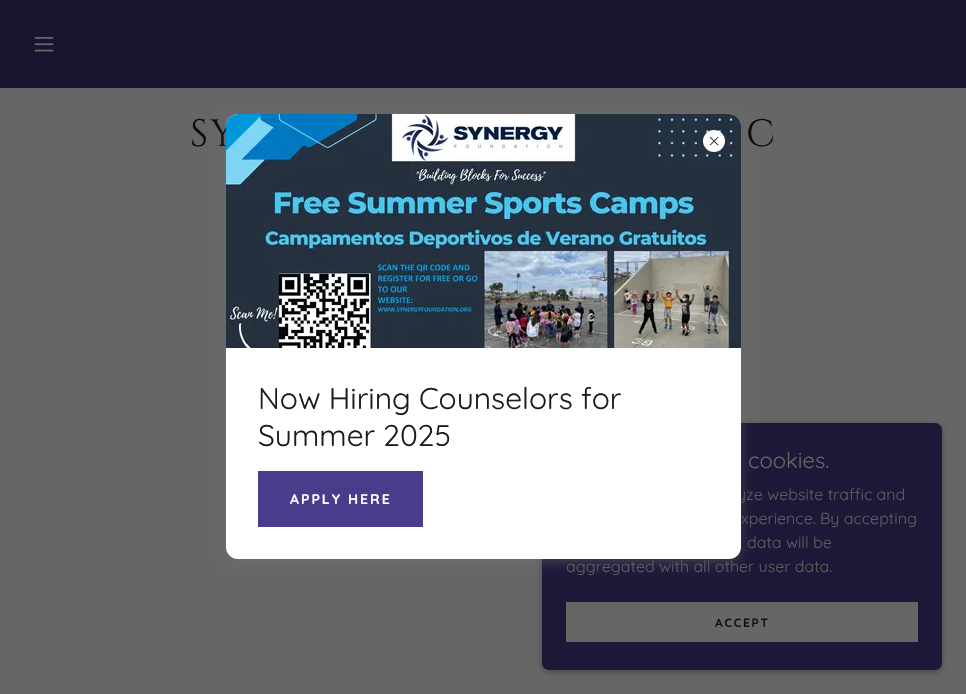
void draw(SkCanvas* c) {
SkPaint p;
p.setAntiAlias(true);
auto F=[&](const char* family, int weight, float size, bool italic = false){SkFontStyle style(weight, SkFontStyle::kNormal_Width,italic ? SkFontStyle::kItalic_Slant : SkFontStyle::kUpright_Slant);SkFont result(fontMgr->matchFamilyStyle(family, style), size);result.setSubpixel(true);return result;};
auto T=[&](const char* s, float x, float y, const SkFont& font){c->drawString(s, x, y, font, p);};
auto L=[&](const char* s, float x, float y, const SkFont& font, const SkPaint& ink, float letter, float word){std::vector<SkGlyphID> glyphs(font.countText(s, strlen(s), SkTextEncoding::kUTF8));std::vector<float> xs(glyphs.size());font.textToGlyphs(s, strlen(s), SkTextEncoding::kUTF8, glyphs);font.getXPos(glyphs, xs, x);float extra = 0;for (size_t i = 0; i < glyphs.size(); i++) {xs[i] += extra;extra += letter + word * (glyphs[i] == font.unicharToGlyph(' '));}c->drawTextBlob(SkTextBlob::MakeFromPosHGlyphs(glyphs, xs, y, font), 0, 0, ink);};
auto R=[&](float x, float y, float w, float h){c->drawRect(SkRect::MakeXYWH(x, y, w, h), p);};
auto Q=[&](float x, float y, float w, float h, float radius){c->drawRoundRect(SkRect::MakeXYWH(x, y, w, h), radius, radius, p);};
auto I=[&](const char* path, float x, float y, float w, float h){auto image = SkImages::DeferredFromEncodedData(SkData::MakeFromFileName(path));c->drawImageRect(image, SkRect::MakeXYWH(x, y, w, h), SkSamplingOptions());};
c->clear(0xff666666);
p.setColor(0xff181430);
R(0,0,966,88);
I("1.png",34,37,20,15);
auto f1 = F("Cinzel",400,38);
p.setColor(0xff0b0b0b);
L("SY",190,146,f1,p,2,0);
L("C",746,146,f1,p,2,0);
p.setColor(0x4d000000);
p.setMaskFilter(SkMaskFilter::MakeBlur(kNormal_SkBlurStyle, 3));
c->drawRoundRect(SkRect::MakeXYWH(542,425,400,247),7,7,p);
p.setMaskFilter(nullptr);
p.setColor(0xff1d1838);
Q(542,423,400,247,7);
p.setColor(0x66757575);
p.setMaskFilter(SkMaskFilter::MakeBlur(kNormal_SkBlurStyle, 6));
c->drawRoundRect(SkRect::MakeXYWH(226,118,515,445),12,12,p);
p.setMaskFilter(nullptr);
auto f2 = F("Quicksand",400,16);
p.setColor(0xff5c5b5c);
T("yze website traffic and",737,500,f2);
p.setColor(0xffffffff);
Q(226,114,515,445,12);
I("3.png",226,114,515,234);
c->drawCircle(714,141,11,p);
I("2.png",710,137,9,9);
auto f3 = F("Quicksand",400,30);
p.setColor(0xff1b1b1b);
T("Now Hiring Counselors for",258,409,f3);
T("Summer 2025",258,446,f3);
p.setColor(0xff483d8b);
R(258,471,165,56);
auto f4 = F("Quicksand",700,14);
p.setColor(0xffffffff);
L("APPLY HERE",290,504,f4,p,2,0);
auto f5 = F("Quicksand",400,22);
p.setColor(0xff666666);
T("cookies.",748,468,f5);
p.setColor(0xff5c5b5c);
T("xperience. By accepting",741,524,f2);
T("data will be",747,548,f2);
T("aggregated with all other user data.",566,572,f2);
p.setColor(0xff666666);
R(566,602,352,40);
auto f6 = F("Quicksand",700,12);
p.setColor(0xff131313);
L("ACCEPT",715,627,f6,p,1.75,0);
}
